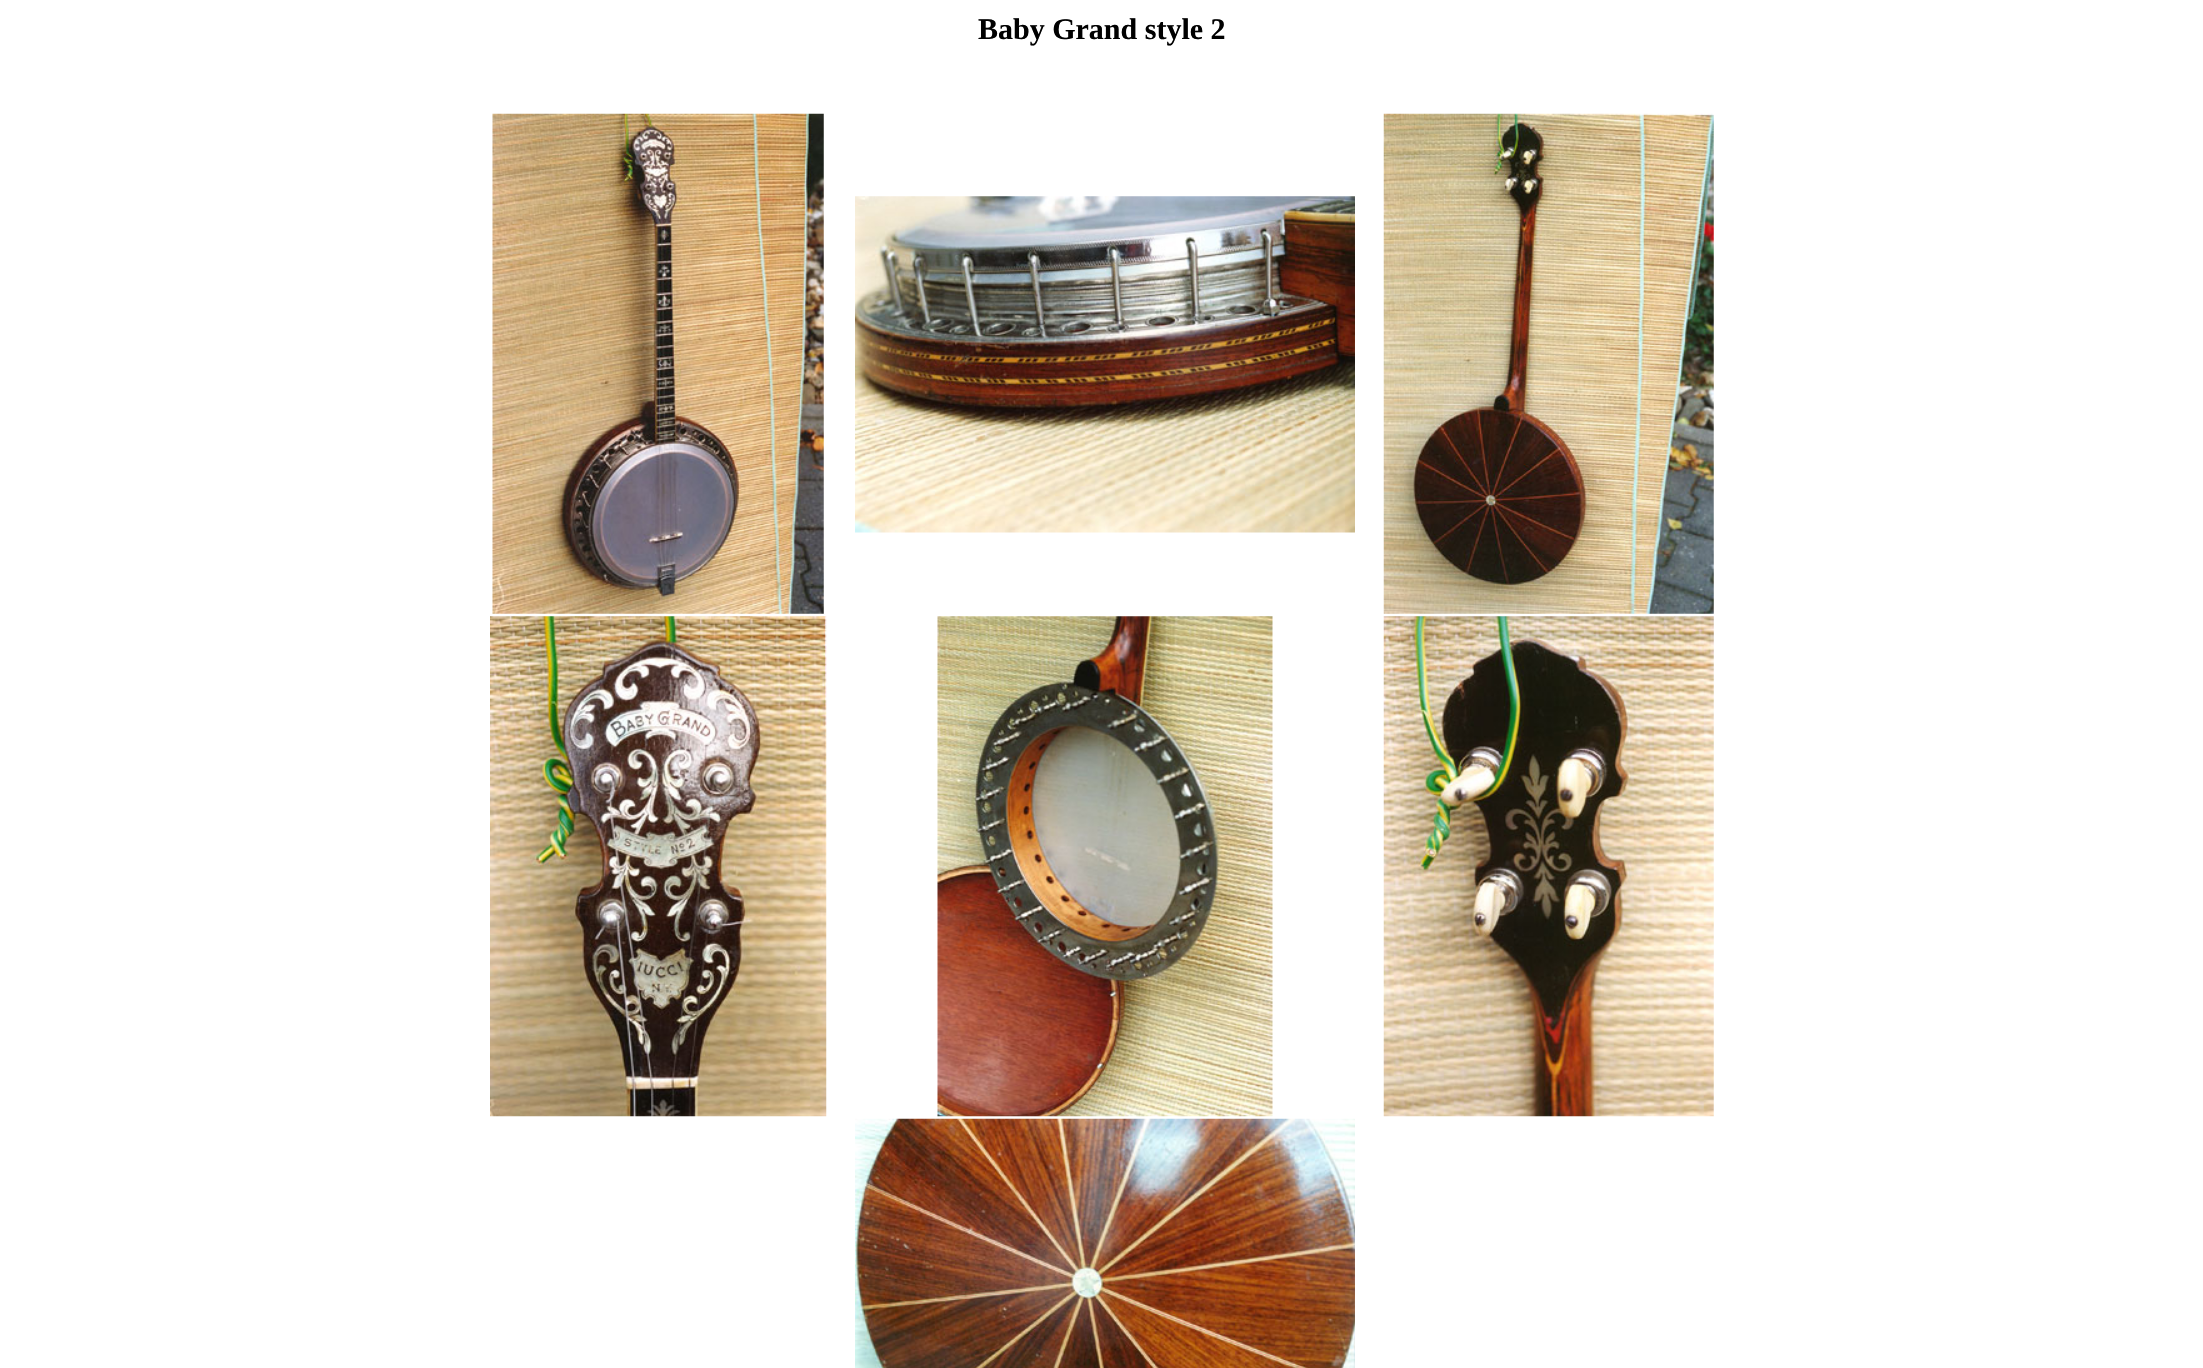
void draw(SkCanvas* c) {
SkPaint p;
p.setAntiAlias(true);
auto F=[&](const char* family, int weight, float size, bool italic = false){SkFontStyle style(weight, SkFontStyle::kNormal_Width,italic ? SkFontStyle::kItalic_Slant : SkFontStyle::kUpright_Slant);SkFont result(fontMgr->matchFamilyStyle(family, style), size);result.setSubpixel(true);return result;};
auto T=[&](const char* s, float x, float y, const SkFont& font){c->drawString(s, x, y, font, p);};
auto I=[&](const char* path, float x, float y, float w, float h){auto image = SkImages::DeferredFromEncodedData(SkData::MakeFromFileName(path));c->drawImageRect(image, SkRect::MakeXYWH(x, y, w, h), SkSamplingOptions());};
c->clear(0xffffffff);
auto f1 = F("Liberation Serif",700,30);
p.setColor(0xff000000);
T("Baby Grand style 2",978,39,f1);
I("1.png",492,113,332,501);
I("2.png",855,196,500,337);
I("3.png",1383,113,331,501);
I("4.png",490,616,337,501);
I("5.png",937,616,336,501);
I("6.png",1383,616,331,501);
I("7.png",855,1118,500,250);
}
